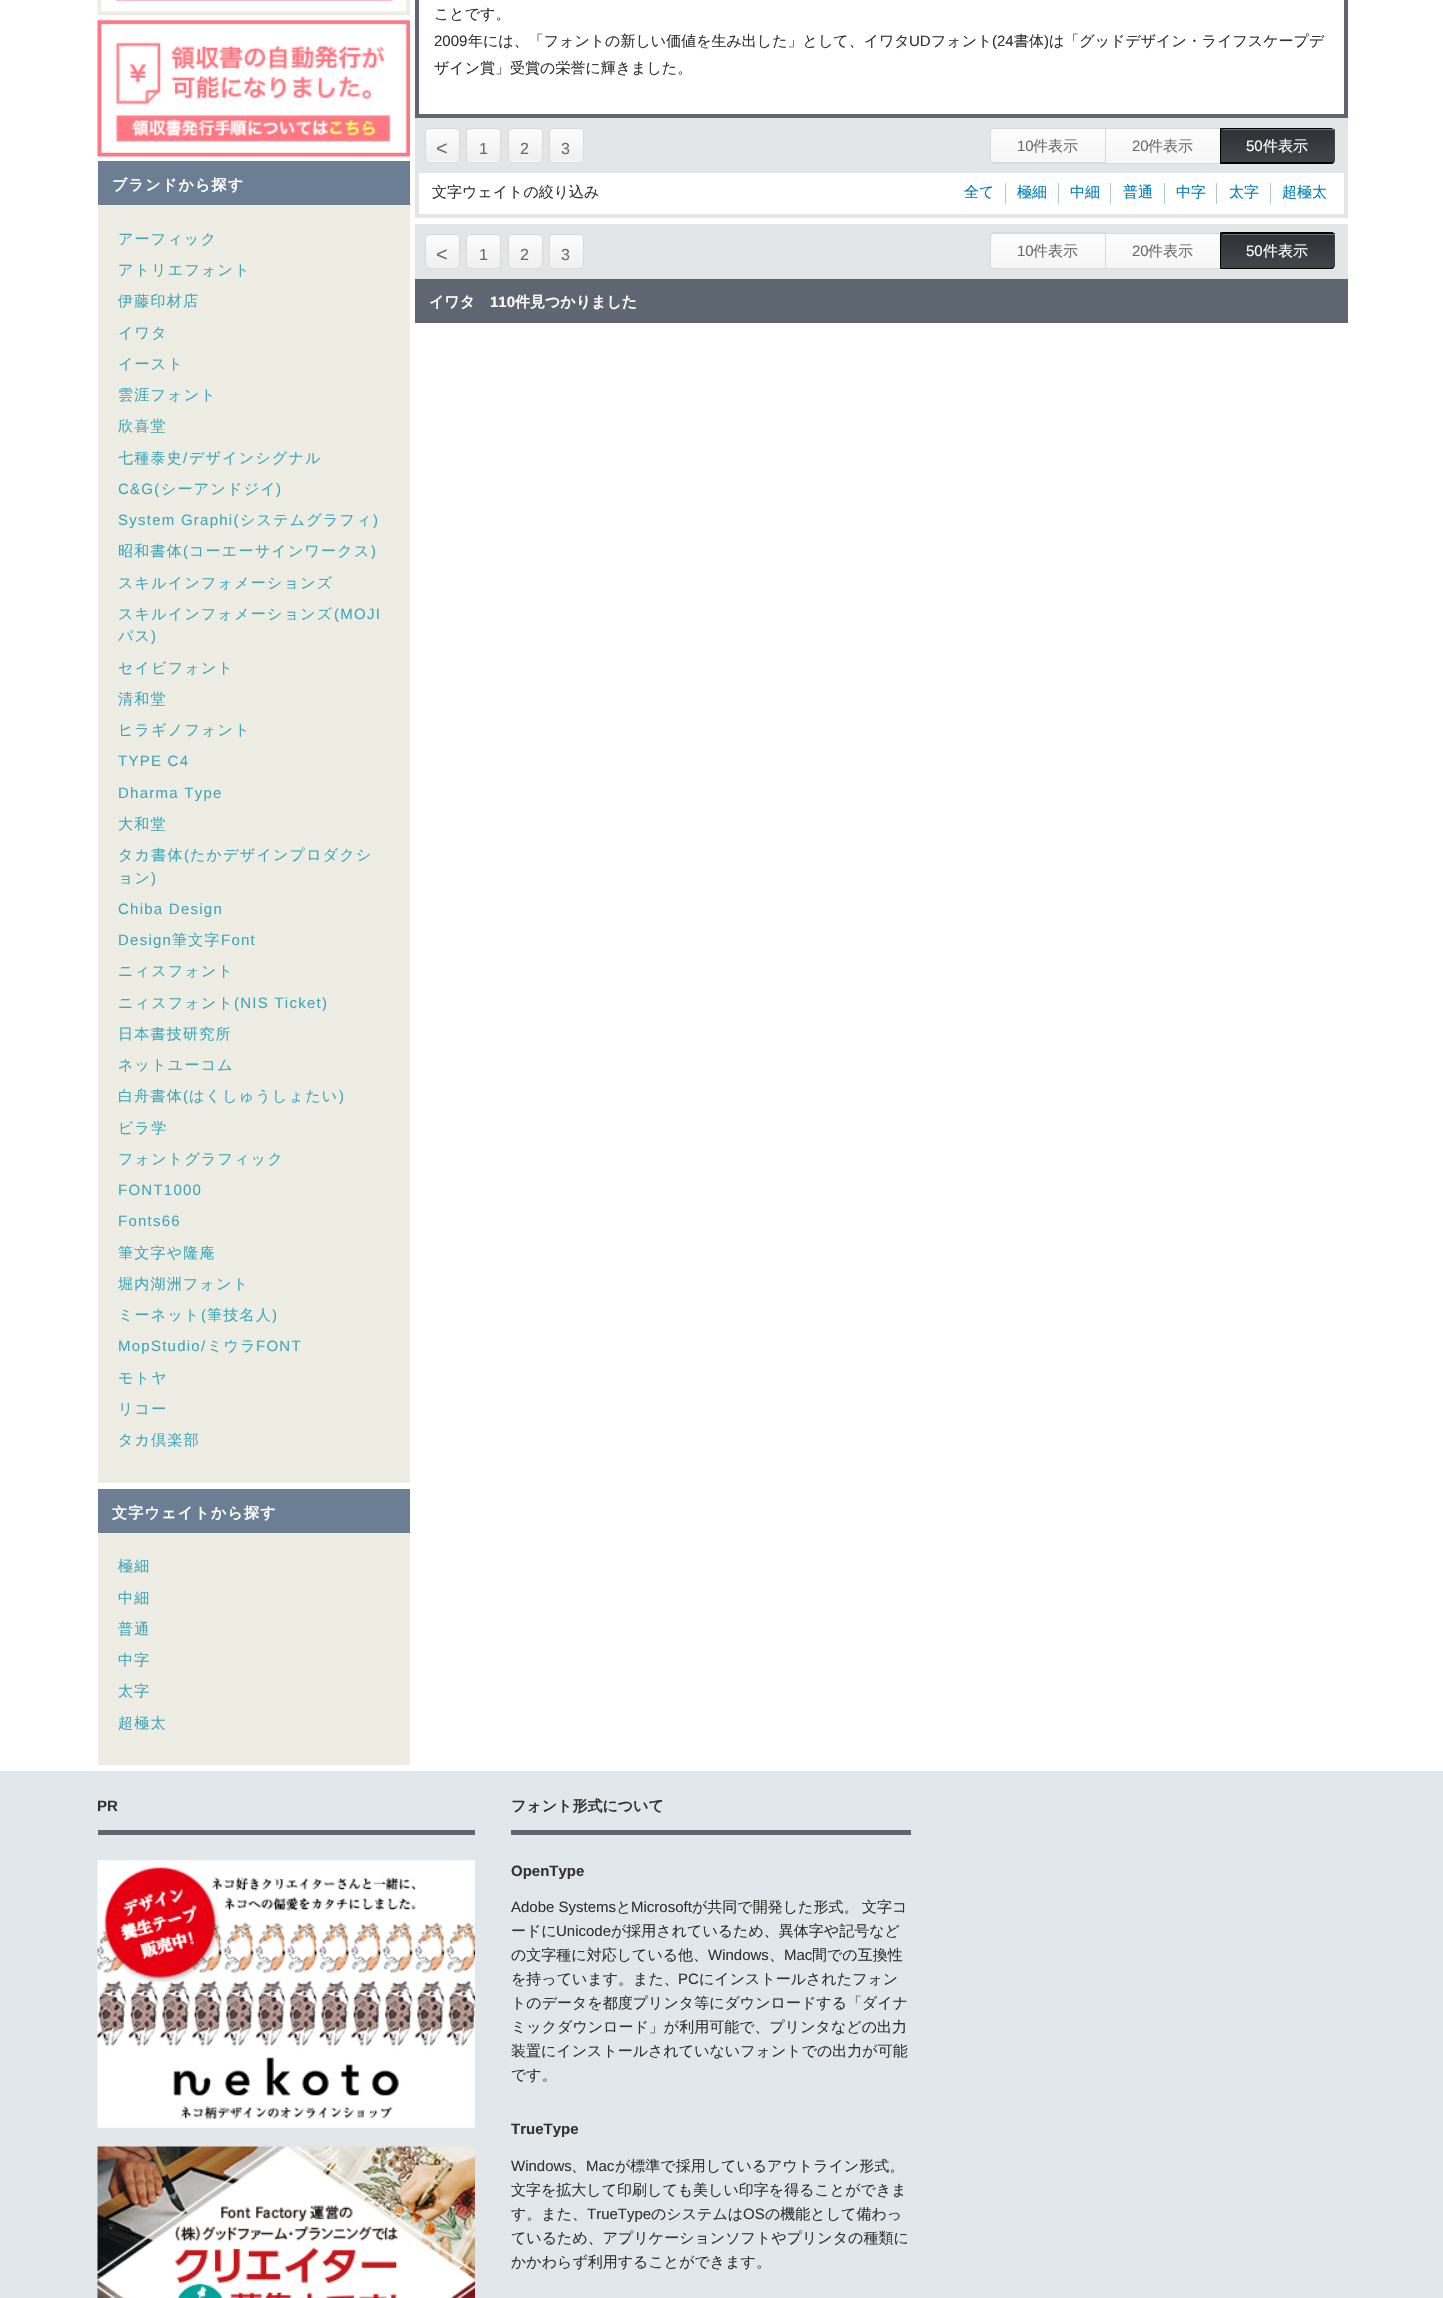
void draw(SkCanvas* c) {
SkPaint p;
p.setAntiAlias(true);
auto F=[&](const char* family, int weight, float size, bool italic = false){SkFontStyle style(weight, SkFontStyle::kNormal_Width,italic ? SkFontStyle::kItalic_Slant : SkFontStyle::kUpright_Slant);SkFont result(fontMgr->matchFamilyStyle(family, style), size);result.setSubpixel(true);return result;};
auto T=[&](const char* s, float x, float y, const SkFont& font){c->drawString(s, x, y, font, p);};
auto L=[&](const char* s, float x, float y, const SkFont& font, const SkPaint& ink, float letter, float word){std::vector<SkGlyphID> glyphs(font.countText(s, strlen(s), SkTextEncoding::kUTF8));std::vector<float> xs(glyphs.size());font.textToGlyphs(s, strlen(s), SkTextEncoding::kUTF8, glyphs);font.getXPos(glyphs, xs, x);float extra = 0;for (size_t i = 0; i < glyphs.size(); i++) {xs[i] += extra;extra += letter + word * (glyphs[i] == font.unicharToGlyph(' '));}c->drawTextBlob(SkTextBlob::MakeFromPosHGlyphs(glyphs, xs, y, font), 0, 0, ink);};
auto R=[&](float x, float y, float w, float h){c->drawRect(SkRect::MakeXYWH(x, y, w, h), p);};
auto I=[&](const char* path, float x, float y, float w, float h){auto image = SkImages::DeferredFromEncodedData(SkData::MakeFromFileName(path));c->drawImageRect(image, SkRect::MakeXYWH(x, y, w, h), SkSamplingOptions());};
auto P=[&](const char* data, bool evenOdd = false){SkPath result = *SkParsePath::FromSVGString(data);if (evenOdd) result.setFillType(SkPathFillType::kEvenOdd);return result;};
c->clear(0xffffffff);
I("1.png",97,0,313,16);
I("2.png",97,20,313,137);
p.setColor(0xff6b7e94);
R(98,161,312,44);
auto f1 = F("WenQuanYi Zen Hei",700,15);
p.setColor(0xffffffff);
L("ブランドから探す",112,190,f1,p,1.25,0);
p.setColor(0xffedede4);
R(98,205,312,1278);
auto f2 = F("WenQuanYi Zen Hei",500,15);
p.setColor(0xff41a7ba);
L("アーフィック",118,244,f2,p,1.25,0);
L("アトリエフォント",118,275,f2,p,1.25,0);
L("伊藤印材店",118,306,f2,p,1.25,0);
L("イワタ",118,338,f2,p,1.25,0);
L("イースト",118,369,f2,p,1.25,0);
L("雲涯フォント",118,400,f2,p,1.25,0);
L("欣喜堂",118,431,f2,p,1.25,0);
L("七種泰史",118,463,f2,p,1.25,0);
auto f3 = F("Liberation Sans",400,15);
L("/",183,463,f3,p,1.25,0);
L("デザインシグナル",189,463,f2,p,1.25,0);
L("C&G(",118,494,f3,p,1.25,0);
L("シーアンドジイ",161,494,f2,p,1.25,0);
L(")",276,494,f3,p,1.25,0);
L("System Graphi(",118,525,f3,p,1.25,0);
L("システムグラフィ",240,525,f2,p,1.25,0);
L(")",373,525,f3,p,1.25,0);
L("昭和書体",118,556,f2,p,1.25,0);
L("(",183,556,f3,p,1.25,0);
L("コーエーサインワークス",189,556,f2,p,1.25,0);
L(")",371,556,f3,p,1.25,0);
L("スキルインフォメーションズ",118,588,f2,p,1.25,0);
L("スキルインフォメーションズ",118,619,f2,p,1.25,0);
L("(MOJI",334,619,f3,p,1.25,0);
L("パス",118,641,f2,p,1.25,0);
L(")",151,641,f3,p,1.25,0);
L("セイビフォント",118,673,f2,p,1.25,0);
L("清和堂",118,704,f2,p,1.25,0);
L("ヒラギノフォント",118,735,f2,p,1.25,0);
L("TYPE C4",118,766,f3,p,1.25,0);
L("Dharma Type",118,798,f3,p,1.25,0);
L("大和堂",118,829,f2,p,1.25,0);
L("タカ書体",118,860,f2,p,1.25,0);
L("(",184,860,f3,p,1.25,0);
L("たかデザインプロダクシ",190,860,f2,p,1.25,0);
L("ョン",118,883,f2,p,1.25,0);
L(")",151,883,f3,p,1.25,0);
L("Chiba Design",118,914,f3,p,1.25,0);
L("Design",118,945,f3,p,1.25,0);
L("筆文字",172,945,f2,p,1.25,0);
L("Font",221,945,f3,p,1.25,0);
L("ニィスフォント",118,976,f2,p,1.25,0);
L("ニィスフォント",118,1008,f2,p,1.25,0);
L("(NIS Ticket)",234,1008,f3,p,1.25,0);
L("日本書技研究所",118,1039,f2,p,1.25,0);
L("ネットユーコム",118,1070,f2,p,1.25,0);
L("白舟書体",118,1101,f2,p,1.25,0);
L("(",183,1101,f3,p,1.25,0);
L("はくしゅうしょたい",189,1101,f2,p,1.25,0);
L(")",339,1101,f3,p,1.25,0);
L("ビラ学",118,1133,f2,p,1.25,0);
L("フォントグラフィック",118,1164,f2,p,1.25,0);
L("FONT1000",118,1195,f3,p,1.25,0);
L("Fonts66",118,1226,f3,p,1.25,0);
L("筆文字や隆庵",118,1258,f2,p,1.25,0);
L("堀内湖洲フォント",118,1289,f2,p,1.25,0);
L("ミーネット",118,1320,f2,p,1.25,0);
L("(",201,1320,f3,p,1.25,0);
L("筆技名人",207,1320,f2,p,1.25,0);
L(")",272,1320,f3,p,1.25,0);
L("MopStudio/",118,1351,f3,p,1.25,0);
L("ミウラ",207,1351,f2,p,1.25,0);
L("FONT",256,1351,f3,p,1.25,0);
L("モトヤ",118,1383,f2,p,1.25,0);
L("リコー",118,1414,f2,p,1.25,0);
L("タカ倶楽部",118,1445,f2,p,1.25,0);
p.setColor(0xff6b7e94);
R(98,1489,312,44);
p.setColor(0xffffffff);
L("文字ウェイトから探す",112,1518,f1,p,1.25,0);
p.setColor(0xffedede4);
R(98,1533,312,232);
p.setColor(0xff41a7ba);
L("極細",118,1571,f2,p,1.25,0);
L("中細",118,1603,f2,p,1.25,0);
L("普通",118,1634,f2,p,1.25,0);
L("中字",118,1665,f2,p,1.25,0);
L("太字",118,1696,f2,p,1.25,0);
L("超極太",118,1728,f2,p,1.25,0);
p.setColor(0xff5e6771);
R(1344,0,4,118);
R(415,114,933,4);
R(415,0,4,118);
p.setColor(0xff333333);
T("ことです。",434,19,f2);
T("2009",434,46,f3);
T("年には、「フォントの新しい価値を生み出した」として、イワタ",468,46,f2);
T("UD",909,46,f3);
T("フォント",931,46,f2);
T("(24",992,46,f3);
T("書体",1014,46,f2);
T(")",1044,46,f3);
T("は「グッドデザイン・ライフスケープデ",1049,46,f2);
T("ザイン賞」受賞の栄誉に輝きました。",434,73,f2);
p.setColor(0xffe3e5e6);
R(415,118,933,55);
c->save();
c->clipPath(P("M429 128h27c2 0 4 2 4 4v27c0 2-2 4-4 4h-27c-2 0-4-2-4-4v-27c0-2 2-4 4-4z"),true);
{
const SkColor colors[] = {0xfffbfbfb,0xfff1f1f1};
const float stops[] = {.18,.87};
const SkPoint ends[] = {{426,129}, {426,161}};
p.setShader(SkGradientShader::MakeLinear(ends, colors, stops, 2, SkTileMode::kClamp));
p.setAlpha(255);
}
R(425,129,35,32);
{
const SkColor colors[] = {0xfffbfbfb,0xfff1f1f1};
const float stops[] = {.18,.87};
const SkPoint ends[] = {{426,161}, {426,194}};
p.setShader(SkGradientShader::MakeLinear(ends, colors, stops, 2, SkTileMode::kClamp));
p.setAlpha(255);
}
R(425,161,35,2);
c->restore();
p.setStroke(true);
p.setStrokeWidth(1);
p.setShader(nullptr);
p.setColor(0xffd9d9d9);
c->drawRoundRect(SkRect::MakeXYWH(425.5,128.5,34,34),3.5,3.5,p);
auto f4 = F("Liberation Sans",400,20);
p.setStroke(false);
p.setColor(0xff6b6b6b);
T("<",436,155,f4);
c->save();
c->clipPath(P("M470 128h27c2 0 4 2 4 4v27c0 2-2 4-4 4h-27c-2 0-4-2-4-4v-27c0-2 2-4 4-4z"),true);
{
const SkColor colors[] = {0xfffbfbfb,0xfff1f1f1};
const float stops[] = {.18,.87};
const SkPoint ends[] = {{468,129}, {468,161}};
p.setShader(SkGradientShader::MakeLinear(ends, colors, stops, 2, SkTileMode::kClamp));
p.setAlpha(255);
}
R(466,129,35,32);
{
const SkColor colors[] = {0xfffbfbfb,0xfff1f1f1};
const float stops[] = {.18,.87};
const SkPoint ends[] = {{468,161}, {468,194}};
p.setShader(SkGradientShader::MakeLinear(ends, colors, stops, 2, SkTileMode::kClamp));
p.setAlpha(255);
}
R(466,161,35,2);
c->restore();
p.setStroke(true);
p.setShader(nullptr);
p.setColor(0xffd9d9d9);
c->drawRoundRect(SkRect::MakeXYWH(466.5,128.5,34,34),3.5,3.5,p);
auto f5 = F("Liberation Sans",400,16);
p.setStroke(false);
p.setColor(0xff6b6b6b);
T("1",479,154,f5);
c->save();
c->clipPath(P("M512 128h27c2 0 4 2 4 4v27c0 2-2 4-4 4h-27c-2 0-4-2-4-4v-27c0-2 2-4 4-4z"),true);
{
const SkColor colors[] = {0xfffbfbfb,0xfff1f1f1};
const float stops[] = {.18,.87};
const SkPoint ends[] = {{509,129}, {509,161}};
p.setShader(SkGradientShader::MakeLinear(ends, colors, stops, 2, SkTileMode::kClamp));
p.setAlpha(255);
}
R(508,129,35,32);
{
const SkColor colors[] = {0xfffbfbfb,0xfff1f1f1};
const float stops[] = {.18,.87};
const SkPoint ends[] = {{509,161}, {509,194}};
p.setShader(SkGradientShader::MakeLinear(ends, colors, stops, 2, SkTileMode::kClamp));
p.setAlpha(255);
}
R(508,161,35,2);
c->restore();
p.setStroke(true);
p.setShader(nullptr);
p.setColor(0xffd9d9d9);
c->drawRoundRect(SkRect::MakeXYWH(508.5,128.5,34,34),3.5,3.5,p);
p.setStroke(false);
p.setColor(0xff6b6b6b);
T("2",520,154,f5);
c->save();
c->clipPath(P("M553 128h27c2 0 4 2 4 4v27c0 2-2 4-4 4h-27c-2 0-4-2-4-4v-27c0-2 2-4 4-4z"),true);
{
const SkColor colors[] = {0xfffbfbfb,0xfff1f1f1};
const float stops[] = {.18,.87};
const SkPoint ends[] = {{550,129}, {550,161}};
p.setShader(SkGradientShader::MakeLinear(ends, colors, stops, 2, SkTileMode::kClamp));
p.setAlpha(255);
}
R(549,129,35,32);
{
const SkColor colors[] = {0xfffbfbfb,0xfff1f1f1};
const float stops[] = {.18,.87};
const SkPoint ends[] = {{550,161}, {550,194}};
p.setShader(SkGradientShader::MakeLinear(ends, colors, stops, 2, SkTileMode::kClamp));
p.setAlpha(255);
}
R(549,161,35,2);
c->restore();
p.setStroke(true);
p.setShader(nullptr);
p.setColor(0xffd9d9d9);
c->drawRoundRect(SkRect::MakeXYWH(549.5,128.5,34,34),3.5,3.5,p);
p.setStroke(false);
p.setColor(0xff6b6b6b);
T("3",561,154,f5);
c->save();
c->clipPath(P("M994 128h111v36h-111c-2 0-4-2-4-4v-28c0-2 2-4 4-4z"),true);
{
const SkColor colors[] = {0xfffcfcfc,0xfff7f7f7};
const float stops[] = {.18,.87};
const SkPoint ends[] = {{991,129}, {991,163}};
p.setShader(SkGradientShader::MakeLinear(ends, colors, stops, 2, SkTileMode::kClamp));
p.setAlpha(255);
}
R(990,129,115,34);
c->restore();
p.setShader(nullptr);
p.setColor(0xffd9d9d9);
c->drawPath(P("M994 128h111v36h-111c-2 0-4-2-4-4v-29c0-2 2-3 4-3zm0 1h111v33h-111c-2 0-3-1-3-2v-29c0-1 1-2 3-2z",true),p);
p.setColor(0xff6b6b6b);
T("10",1017,151,f3);
T("件表示",1033,151,f2);
{
const SkColor colors[] = {0xfffcfcfc,0xfff7f7f7};
const float stops[] = {.18,.87};
const SkPoint ends[] = {{1106,129}, {1106,163}};
p.setShader(SkGradientShader::MakeLinear(ends, colors, stops, 2, SkTileMode::kClamp));
p.setAlpha(255);
}
R(1106,129,114,34);
p.setShader(nullptr);
p.setColor(0xffd9d9d9);
R(1105,128,115,1);
R(1105,163,115,1);
R(1105,128,1,36);
p.setColor(0xff6b6b6b);
T("20",1132,151,f3);
T("件表示",1148,151,f2);
c->save();
c->clipPath(P("M1220 128h111c2 0 4 2 4 4v28c0 2-2 4-4 4h-111z"),true);
{
const SkColor colors[] = {0xff323338,0xff414348};
const float stops[] = {.18,.87};
const SkPoint ends[] = {{1221,129}, {1221,163}};
p.setShader(SkGradientShader::MakeLinear(ends, colors, stops, 2, SkTileMode::kClamp));
p.setAlpha(255);
}
R(1221,129,114,34);
c->restore();
p.setShader(nullptr);
p.setColor(0xff000000);
c->drawPath(P("M1334 129l-3-1h-111l2 1h109h2z"),p);
p.setColor(0xff414348);
c->drawPath(P("M1334 129c.5 0 1 1 1 2v29c0 1-.5 2-1 2.5l-1-1c.5-.5 1-1 1-1.5v-29c0-.5-.5-1-1-1.5z"),p);
p.setColor(0xff000000);
c->drawPath(P("M1332 164h-112l2-2h109h2l1 1z"),p);
c->drawPath(P("M1221 129h.5l-1-1h-.5v36l2-2h-1z"),p);
p.setColor(0xff6e7074);
R(1223,129,112,1);
p.setColor(0xffffffff);
T("50",1246,151,f3);
T("件表示",1263,151,f2);
p.setColor(0xffe3e5e6);
R(1344,173,4,45);
R(415,214,933,4);
R(415,173,4,45);
p.setColor(0xff333333);
T("文字ウェイトの絞り込み",432,197,f2);
p.setColor(0xff017eba);
T("全て",964,197,f2);
p.setColor(0xffaac9e0);
R(1005,183,1,21);
p.setColor(0xff017eba);
T("極細",1017,197,f2);
p.setColor(0xffaac9e0);
R(1058,183,1,21);
p.setColor(0xff017eba);
T("中細",1070,197,f2);
p.setColor(0xffaac9e0);
R(1110,183,1,21);
p.setColor(0xff017eba);
T("普通",1123,197,f2);
p.setColor(0xffaac9e0);
R(1164,183,1,21);
p.setColor(0xff017eba);
T("中字",1176,197,f2);
p.setColor(0xffaac9e0);
R(1216,183,1,21);
p.setColor(0xff017eba);
T("太字",1229,197,f2);
p.setColor(0xffaac9e0);
R(1270,183,1,21);
p.setColor(0xff017eba);
T("超極太",1282,197,f2);
p.setColor(0xffe3e5e6);
R(415,224,933,55);
c->save();
c->clipPath(P("M429 234h27c2 0 4 2 4 4v27c0 2-2 4-4 4h-27c-2 0-4-2-4-4v-27c0-2 2-4 4-4z"),true);
{
const SkColor colors[] = {0xfffbfbfb,0xfff1f1f1};
const float stops[] = {.18,.87};
const SkPoint ends[] = {{426,235}, {426,268}};
p.setShader(SkGradientShader::MakeLinear(ends, colors, stops, 2, SkTileMode::kClamp));
p.setAlpha(255);
}
R(425,235,35,33);
c->restore();
p.setStroke(true);
p.setShader(nullptr);
p.setColor(0xffd9d9d9);
c->drawRoundRect(SkRect::MakeXYWH(425.5,234.5,34,34),3.5,3.5,p);
p.setStroke(false);
p.setColor(0xff6b6b6b);
T("<",436,261,f4);
c->save();
c->clipPath(P("M470 234h27c2 0 4 2 4 4v27c0 2-2 4-4 4h-27c-2 0-4-2-4-4v-27c0-2 2-4 4-4z"),true);
{
const SkColor colors[] = {0xfffbfbfb,0xfff1f1f1};
const float stops[] = {.18,.87};
const SkPoint ends[] = {{468,235}, {468,268}};
p.setShader(SkGradientShader::MakeLinear(ends, colors, stops, 2, SkTileMode::kClamp));
p.setAlpha(255);
}
R(466,235,35,33);
c->restore();
p.setStroke(true);
p.setShader(nullptr);
p.setColor(0xffd9d9d9);
c->drawRoundRect(SkRect::MakeXYWH(466.5,234.5,34,34),3.5,3.5,p);
p.setStroke(false);
p.setColor(0xff6b6b6b);
T("1",479,260,f5);
c->save();
c->clipPath(P("M512 234h27c2 0 4 2 4 4v27c0 2-2 4-4 4h-27c-2 0-4-2-4-4v-27c0-2 2-4 4-4z"),true);
{
const SkColor colors[] = {0xfffbfbfb,0xfff1f1f1};
const float stops[] = {.18,.87};
const SkPoint ends[] = {{509,235}, {509,268}};
p.setShader(SkGradientShader::MakeLinear(ends, colors, stops, 2, SkTileMode::kClamp));
p.setAlpha(255);
}
R(508,235,35,33);
c->restore();
p.setStroke(true);
p.setShader(nullptr);
p.setColor(0xffd9d9d9);
c->drawRoundRect(SkRect::MakeXYWH(508.5,234.5,34,34),3.5,3.5,p);
p.setStroke(false);
p.setColor(0xff6b6b6b);
T("2",520,260,f5);
c->save();
c->clipPath(P("M553 234h27c2 0 4 2 4 4v27c0 2-2 4-4 4h-27c-2 0-4-2-4-4v-27c0-2 2-4 4-4z"),true);
{
const SkColor colors[] = {0xfffbfbfb,0xfff1f1f1};
const float stops[] = {.18,.87};
const SkPoint ends[] = {{550,235}, {550,268}};
p.setShader(SkGradientShader::MakeLinear(ends, colors, stops, 2, SkTileMode::kClamp));
p.setAlpha(255);
}
R(549,235,35,33);
c->restore();
p.setStroke(true);
p.setShader(nullptr);
p.setColor(0xffd9d9d9);
c->drawRoundRect(SkRect::MakeXYWH(549.5,234.5,34,34),3.5,3.5,p);
p.setStroke(false);
p.setColor(0xff6b6b6b);
T("3",561,260,f5);
c->save();
c->clipPath(P("M994 233h111v36h-111c-2 0-4-2-4-4v-28c0-2 2-4 4-4z"),true);
{
const SkColor colors[] = {0xfffcfcfc,0xfff7f7f7};
const float stops[] = {.18,.87};
const SkPoint ends[] = {{991,234}, {991,268}};
p.setShader(SkGradientShader::MakeLinear(ends, colors, stops, 2, SkTileMode::kClamp));
p.setAlpha(255);
}
R(990,234,115,34);
c->restore();
p.setShader(nullptr);
p.setColor(0xffd9d9d9);
c->drawPath(P("M994 232h111v37h-111c-2 0-4-2-4-4v-29c0-2 2-4 4-4zm0 2h111v34h-111c-2 0-3-2-3-3v-29c0-1 1-2 3-2z",true),p);
p.setColor(0xff6b6b6b);
T("10",1017,256,f3);
T("件表示",1033,256,f2);
{
const SkColor colors[] = {0xfffcfcfc,0xfff7f7f7};
const float stops[] = {.18,.87};
const SkPoint ends[] = {{1106,234}, {1106,268}};
p.setShader(SkGradientShader::MakeLinear(ends, colors, stops, 2, SkTileMode::kClamp));
p.setAlpha(255);
}
R(1106,234,114,34);
p.setShader(nullptr);
p.setColor(0xffd9d9d9);
R(1105,233,115,1);
R(1105,268,115,1);
R(1105,233,1,36);
p.setColor(0xff6b6b6b);
T("20",1132,256,f3);
T("件表示",1148,256,f2);
{
const SkColor colors[] = {0xff323338,0xff414348};
const float stops[] = {.18,.87};
const SkPoint ends[] = {{1221,200}, {1221,234}};
p.setShader(SkGradientShader::MakeLinear(ends, colors, stops, 2, SkTileMode::kClamp));
p.setAlpha(255);
}
R(1220,233,115,1);
c->save();
c->clipPath(P("M1220 233h111c2 0 4 2 4 4v28c0 2-2 4-4 4h-111z"),true);
{
const SkColor colors[] = {0xff323338,0xff414348};
const float stops[] = {.18,.87};
const SkPoint ends[] = {{1221,234}, {1221,268}};
p.setShader(SkGradientShader::MakeLinear(ends, colors, stops, 2, SkTileMode::kClamp));
p.setAlpha(255);
}
R(1221,234,114,34);
c->restore();
p.setShader(nullptr);
p.setColor(0xff000000);
c->drawPath(P("M1220 232h113l1 2h-1h-2h-109z"),p);
p.setColor(0xff414348);
c->drawPath(P("M1335 265v-29c0-1-.5-2-1-2.5l-1 1l1 1.5v24c0 2 .5 5-1 7l1 .5c.5-.5 1-1.5 1-2.5z"),p);
p.setColor(0xff000000);
c->drawPath(P("M1332 269h-112l1-1h110l2-1l1 1z"),p);
c->drawPath(P("M1221 234h.5l-1.5-1.5v36.5l1-1z"),p);
p.setColor(0xff6e7074);
R(1223,234,112,1);
p.setColor(0xffffffff);
T("50",1246,256,f3);
T("件表示",1263,256,f2);
p.setColor(0xff5e6771);
R(415,279,933,44);
p.setColor(0xffffffff);
T("イワタ",429,307,f1);
auto f6 = F("Liberation Sans",700,15);
T("110",490,307,f6);
T("件見つかりました",515,307,f1);
p.setColor(0xffe2e7ec);
R(0,1771,1443,527);
p.setColor(0xff5e6771);
R(98,1830,377,5);
p.setColor(0xff333333);
T("PR",97,1811,f6);
I("3.png",97,1860,378,268);
I("4.png",97,2146,378,152);
p.setColor(0xff5e6771);
R(511,1830,400,5);
p.setColor(0xff333333);
T("フォント形式について",511,1811,f1);
T("OpenType",511,1876,f6);
T("Adobe Systems",511,1912,f3);
T("と",616,1912,f2);
T("Microsoft",631,1912,f3);
T("が共同で開発した形式。",692,1912,f2);
T("文字コ",862,1912,f2);
T("ードに",511,1936,f2);
T("Unicode",556,1936,f3);
T("が採用されているため、異体字や記号など",611,1936,f2);
T("の文字種に対応している他、",511,1960,f2);
T("Windows",708,1960,f3);
T("、",769,1960,f2);
T("Mac",784,1960,f3);
T("間での互換性",812,1960,f2);
T("を持っています。また、",511,1984,f2);
T("PC",678,1984,f3);
T("にインストールされたフォン",699,1984,f2);
T("トのデータを都度プリンタ等にダウンロードする「ダイナ",511,2008,f2);
T("ミックダウンロード」が利用可能で、プリンタなどの出力",511,2032,f2);
T("装置にインストールされていないフォントでの出力が可能",511,2056,f2);
T("です。",511,2080,f2);
T("TrueType",511,2134,f6);
T("Windows",511,2171,f3);
T("、",571,2171,f2);
T("Mac",586,2171,f3);
T("が標準で採用しているアウトライン形式。",615,2171,f2);
T("文字を拡大して印刷しても美しい印字を得ることができま",511,2195,f2);
T("す。また、",511,2219,f2);
T("TrueType",587,2219,f3);
T("のシステムは",651,2219,f2);
T("OS",743,2219,f3);
T("の機能として備わっ",765,2219,f2);
T("ているため、アプリケーションソフトやプリンタの種類に",511,2243,f2);
T("かかわらず利用することができます。",511,2267,f2);
}
